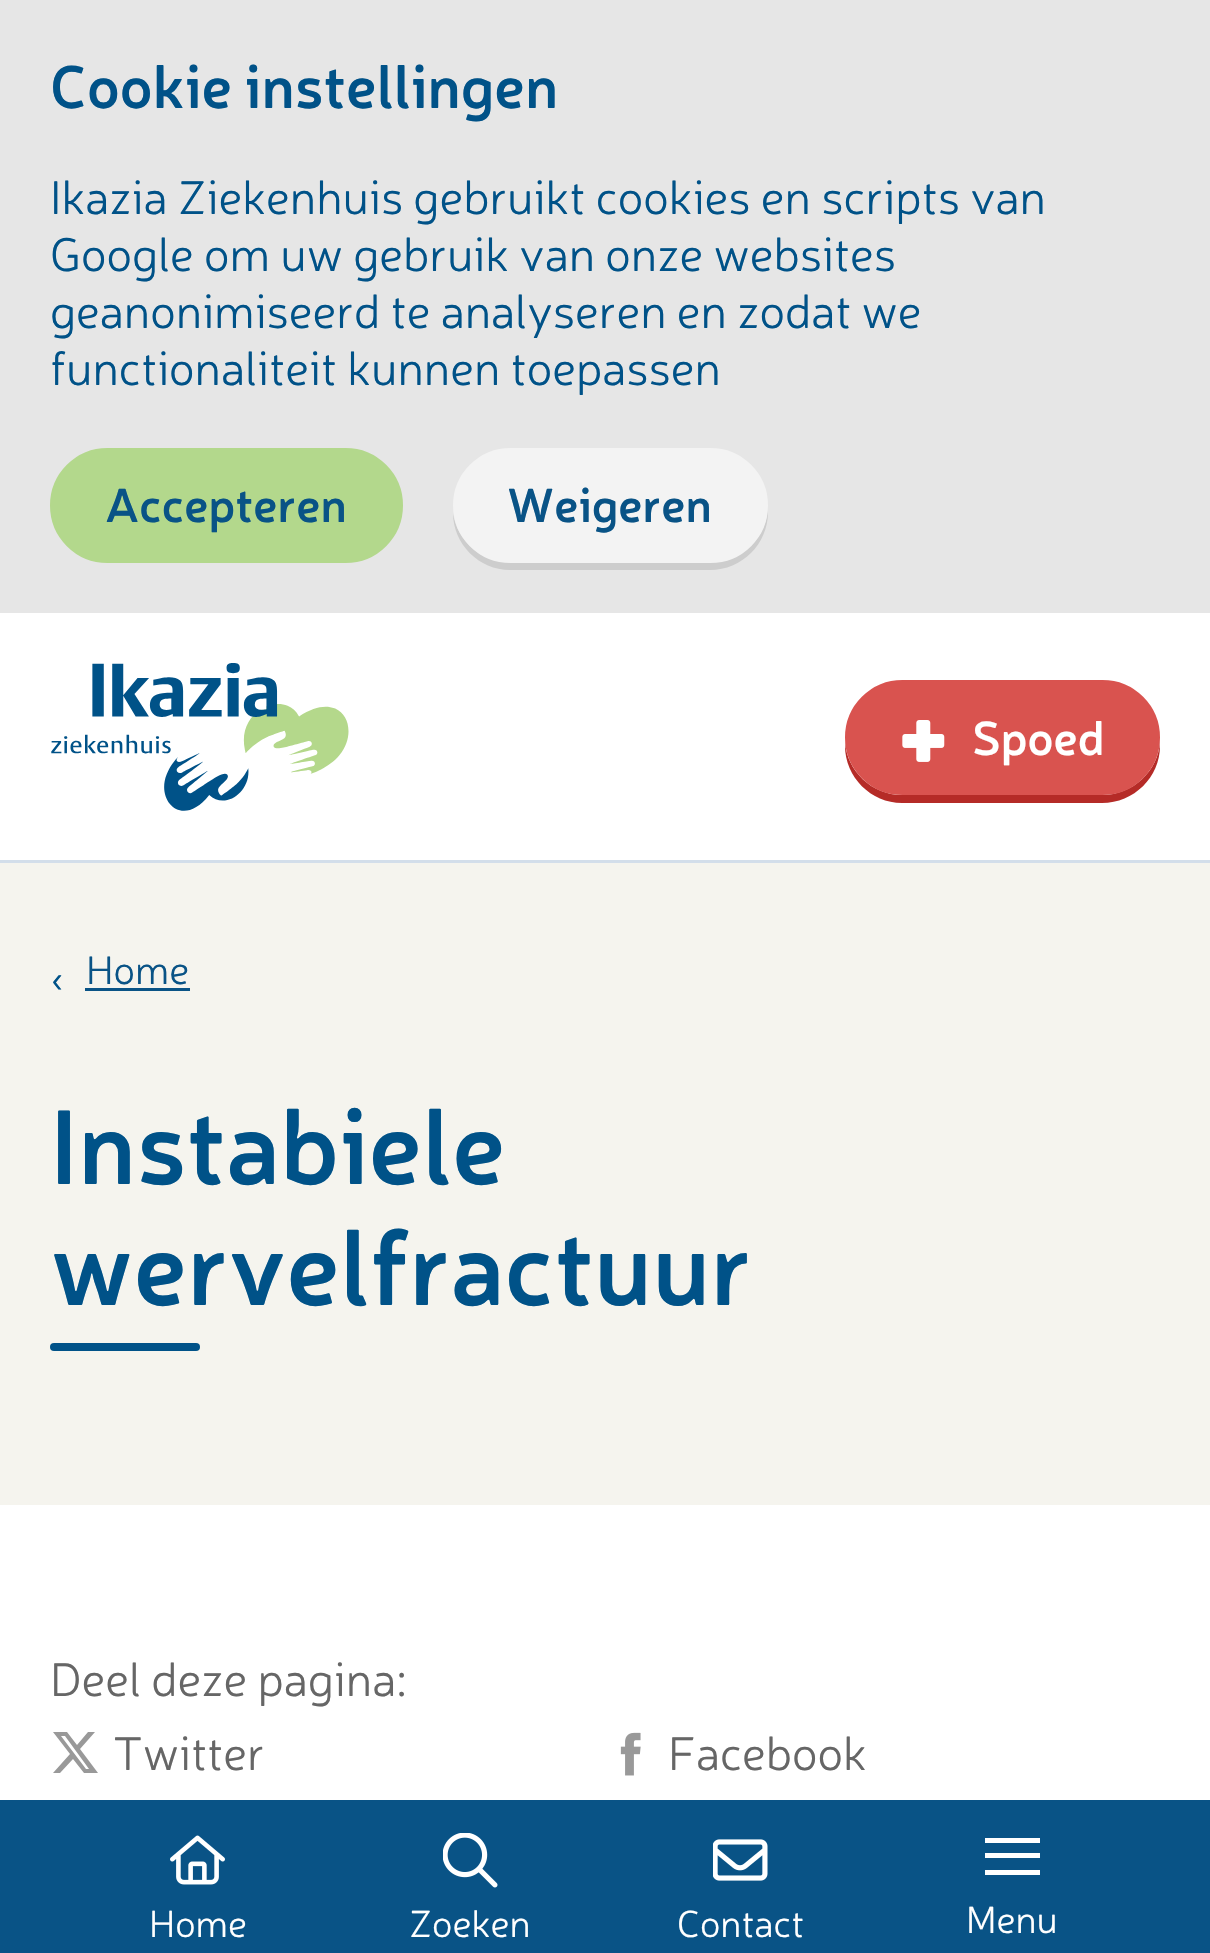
void draw(SkCanvas* c) {
SkPaint p;
p.setAntiAlias(true);
auto F=[&](const char* family, int weight, float size, bool italic = false){SkFontStyle style(weight, SkFontStyle::kNormal_Width,italic ? SkFontStyle::kItalic_Slant : SkFontStyle::kUpright_Slant);SkFont result(fontMgr->matchFamilyStyle(family, style), size);result.setSubpixel(true);return result;};
auto T=[&](const char* s, float x, float y, const SkFont& font){c->drawString(s, x, y, font, p);};
auto R=[&](float x, float y, float w, float h){c->drawRect(SkRect::MakeXYWH(x, y, w, h), p);};
auto Q=[&](float x, float y, float w, float h, float radius){c->drawRoundRect(SkRect::MakeXYWH(x, y, w, h), radius, radius, p);};
auto I=[&](const char* path, float x, float y, float w, float h){auto image = SkImages::DeferredFromEncodedData(SkData::MakeFromFileName(path));c->drawImageRect(image, SkRect::MakeXYWH(x, y, w, h), SkSamplingOptions());};
auto P=[&](const char* data, bool evenOdd = false){SkPath result = *SkParsePath::FromSVGString(data);if (evenOdd) result.setFillType(SkPathFillType::kEvenOdd);return result;};
c->clear(0xffffffff);
p.setColor(0xffe6e6e6);
R(0,0,1210,613);
auto f1 = F("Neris",600,60);
p.setColor(0xff005288);
T("Cookie instellingen",50,108,f1);
auto f2 = F("Neris",300,47.5);
T("Ikazia Ziekenhuis gebruikt cookies en scripts van",50,214,f2);
T("Google om uw gebruik van onze websites",50,271,f2);
T("geanonimiseerd te analyseren en zodat we",50,328,f2);
T("functionaliteit kunnen toepassen",50,385,f2);
p.setColor(0xffb3d88c);
c->drawRoundRect(SkRect::MakeXYWH(52.5,450.5,348,110),55,55,p);
p.setStroke(true);
p.setStrokeWidth(5);
c->drawRoundRect(SkRect::MakeXYWH(52.5,450.5,348,110),55,55,p);
auto f3 = F("Neris",600,47.5);
p.setStroke(false);
p.setColor(0xff095386);
T("Accepteren",105,522,f3);
p.setColor(0xffcdcdcd);
c->drawPath(P("M453 513c0 31 26 57 57 57h200c32 0 58-26 58-58v-7c0 32-26 57-58 57h-200c-29 0-53-21-57-49z"),p);
p.setColor(0xfff3f3f3);
c->drawRoundRect(SkRect::MakeXYWH(455.5,450.5,310,110),55,55,p);
p.setStroke(true);
c->drawRoundRect(SkRect::MakeXYWH(455.5,450.5,310,110),55,55,p);
p.setStroke(false);
p.setColor(0xff095386);
T("Weigeren",507,522,f3);
p.setColor(0xffd3deea);
R(0,860,1210,3);
I("1.png",51,663,298,148);
p.setColor(0xffb52b27);
c->drawPath(P("M845 742v4c0 31 26 57 57 57h200c32 0 58-26 58-57v-4c-2 29-27 53-58 53h-200c-30 0-55-24-57-53z"),p);
p.setColor(0xffd9534f);
c->drawRoundRect(SkRect::MakeXYWH(847.5,682.5,310,110),55,55,p);
p.setStroke(true);
c->drawRoundRect(SkRect::MakeXYWH(847.5,682.5,310,110),55,55,p);
I("2.png",902,720,43,42);
p.setStroke(false);
p.setColor(0xffffffff);
T("Spoed",972,755,f3);
p.setColor(0xfff5f4ee);
R(0,863,1210,642);
auto f4 = F("Neris",300,40);
p.setColor(0xff005288);
T("‹",50,992,f4);
p.setColor(0xff095386);
T("Home",86,984,f4);
R(85,988,105,3);
auto f5 = F("Neris",600,105);
p.setColor(0xff005288);
T("Instabiele",50,1184,f5);
T("wervelfractuur",50,1305,f5);
Q(50,1343,150,8,4);
p.setColor(0xff666666);
T("Deel deze pagina:",50,1696,f2);
p.setColor(0xff999999);
c->drawPath(P("M88 1732h7l-15 17l18 24h-14l-11-14l-13 14h-7l17-19l-17-22h14l10 13zm-2 37h3l-24-33h-4z"),p);
p.setColor(0xff666666);
T("Twitter",113,1770,f2);
I("3.png",620,1732,21,44);
T("Facebook",668,1770,f2);
p.setColor(0xff095386);
R(0,1800,1210,153);
I("4.png",170,1835,55,50);
auto f6 = F("Neris",300,38);
p.setColor(0xffffffff);
T("Home",149,1937,f6);
I("5.png",443,1833,55,55);
T("Zoeken",409,1937,f6);
I("6.png",713,1839,55,42);
T("Contact",677,1937,f6);
R(985,1838,55,5);
R(985,1853,55,5);
R(985,1870,55,5);
T("Menu",966,1933,f6);
}
